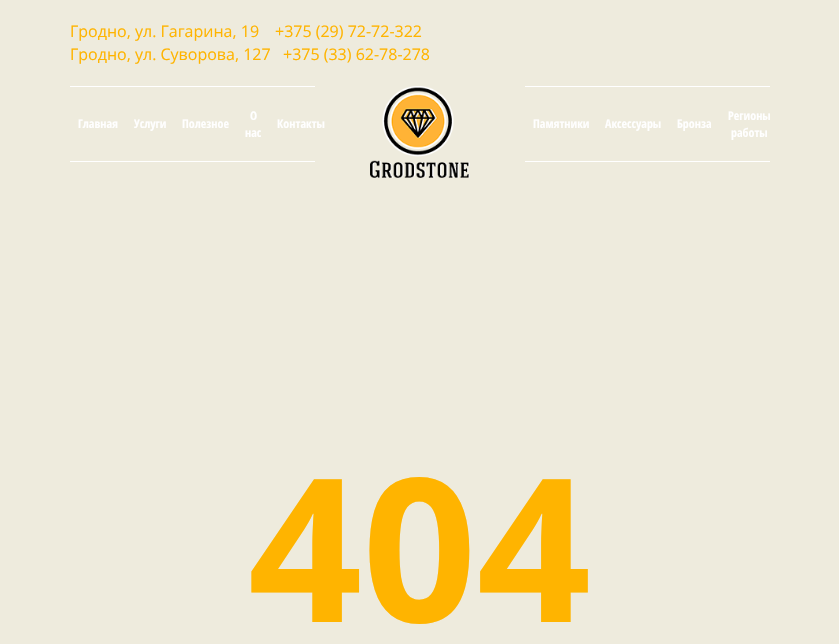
void draw(SkCanvas* c) {
SkPaint p;
p.setAntiAlias(true);
auto F=[&](const char* family, int weight, float size, bool italic = false){SkFontStyle style(weight, SkFontStyle::kNormal_Width,italic ? SkFontStyle::kItalic_Slant : SkFontStyle::kUpright_Slant);SkFont result(fontMgr->matchFamilyStyle(family, style), size);result.setSubpixel(true);return result;};
auto T=[&](const char* s, float x, float y, const SkFont& font){c->drawString(s, x, y, font, p);};
auto R=[&](float x, float y, float w, float h){c->drawRect(SkRect::MakeXYWH(x, y, w, h), p);};
auto I=[&](const char* path, float x, float y, float w, float h){auto image = SkImages::DeferredFromEncodedData(SkData::MakeFromFileName(path));c->drawImageRect(image, SkRect::MakeXYWH(x, y, w, h), SkSamplingOptions());};
c->clear(0xffeeebdd);
auto f1 = F("Open Sans",400,16);
p.setColor(0xffffb400);
T("Гродно, ул. Гагарина, 19",70,37,f1);
T("+375 (29) 72-72-322",275,37,f1);
T("Гродно, ул. Суворова, 127",70,60,f1);
T("+375 (33) 62-78-278",283,60,f1);
p.setColor(0xffffffff);
R(70,86,245,1);
R(70,161,245,1);
auto f2 = F("Open Sans Condensed",700,12);
T("Главная",78,128,f2);
T("Услуги",134,128,f2);
T("Полезное",182,128,f2);
T("О",250,120,f2);
T("нас",245,137,f2);
T("Контакты",277,128,f2);
I("1.png",370,86,100,92);
R(525,86,245,1);
R(525,161,245,1);
T("Памятники",533,128,f2);
T("Аксессуары",605,128,f2);
T("Бронза",677,128,f2);
T("Регионы",728,120,f2);
T("работы",731,137,f2);
auto f3 = F("Open Sans",700,200);
p.setColor(0xffffb400);
T("404",248,622,f3);
}
